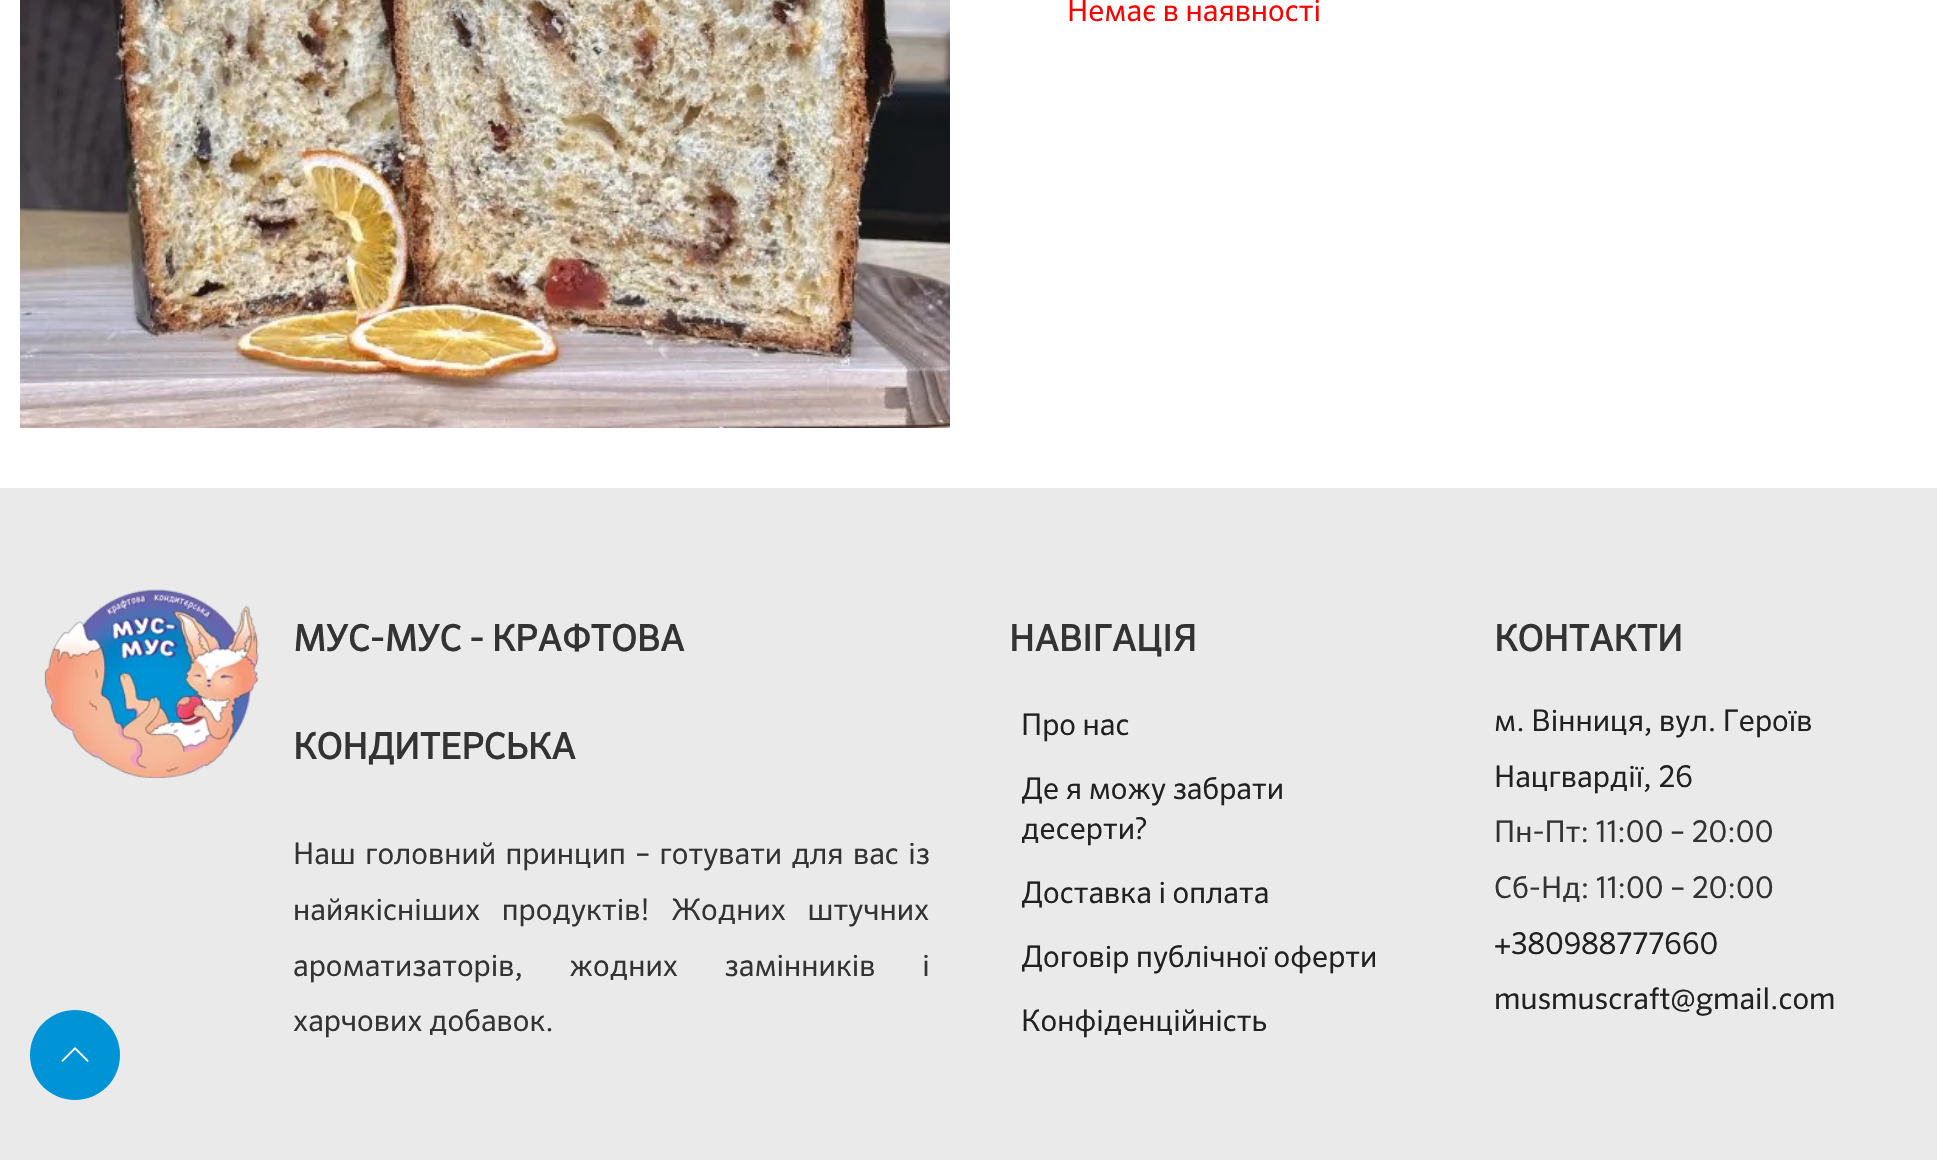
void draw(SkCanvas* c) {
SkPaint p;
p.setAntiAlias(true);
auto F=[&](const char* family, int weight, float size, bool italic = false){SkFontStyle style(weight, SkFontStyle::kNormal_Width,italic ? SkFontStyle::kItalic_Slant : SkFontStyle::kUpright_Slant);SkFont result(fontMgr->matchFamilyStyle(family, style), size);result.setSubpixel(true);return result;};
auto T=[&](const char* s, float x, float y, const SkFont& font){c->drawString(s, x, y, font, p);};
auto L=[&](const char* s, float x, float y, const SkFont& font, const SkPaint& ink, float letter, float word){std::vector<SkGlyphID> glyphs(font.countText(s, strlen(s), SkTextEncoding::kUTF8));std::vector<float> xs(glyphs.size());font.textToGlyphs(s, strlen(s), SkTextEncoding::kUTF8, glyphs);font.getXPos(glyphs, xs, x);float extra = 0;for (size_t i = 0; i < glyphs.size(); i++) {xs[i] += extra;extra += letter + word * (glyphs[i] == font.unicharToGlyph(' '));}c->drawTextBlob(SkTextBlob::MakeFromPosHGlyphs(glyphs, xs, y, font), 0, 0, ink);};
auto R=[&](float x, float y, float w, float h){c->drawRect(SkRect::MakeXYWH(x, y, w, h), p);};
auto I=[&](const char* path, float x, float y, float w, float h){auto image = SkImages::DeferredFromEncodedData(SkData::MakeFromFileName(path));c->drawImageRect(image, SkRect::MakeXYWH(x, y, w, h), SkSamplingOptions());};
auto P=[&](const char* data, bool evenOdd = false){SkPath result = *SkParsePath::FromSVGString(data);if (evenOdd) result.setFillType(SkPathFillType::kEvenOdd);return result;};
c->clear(0xffffffff);
I("1.png",20,0,930,428);
auto f1 = F("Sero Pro",400,30);
p.setColor(0xffff0000);
T("Немає в наявності",1067,21,f1);
p.setColor(0xffeaeaea);
R(0,488,1937,672);
I("2.png",44,589,215,189);
auto f2 = F("Sero Pro",700,36);
p.setColor(0xff333333);
T("МУС-МУС - КРАФТОВА",293,651,f2);
T("КОНДИТЕРСЬКА",293,759,f2);
L("Наш головний принцип – готувати для вас із",293,864,f1,p,0,2.75);
L("найякісніших продуктів! Жодних штучних",293,920,f1,p,0,15);
L("ароматизаторів, жодних замінників і",293,976,f1,p,0,40);
T("харчових добавок.",293,1031,f1);
T("НАВІГАЦІЯ",1009,651,f2);
p.setColor(0xff212121);
T("Про нас",1021,735,f1);
T("Де я можу забрати",1021,799,f1);
T("десерти?",1021,839,f1);
T("Доставка і оплата",1021,903,f1);
T("Договір публічної оферти",1021,967,f1);
T("Конфіденційність",1021,1031,f1);
p.setColor(0xff333333);
T("КОНТАКТИ",1494,651,f2);
p.setColor(0xff212121);
T("м. Вінниця, вул. Героїв",1494,731,f1);
T("Нацгвардії, 26",1494,787,f1);
p.setColor(0xff333333);
T("Пн-Пт: 11:00 – 20:00",1494,842,f1);
T("Сб-Нд: 11:00 – 20:00",1494,898,f1);
p.setColor(0xff212121);
T("+380988777660",1494,954,f1);
T("musmuscraft@gmail.com",1494,1009,f1);
p.setColor(0xff0093d6);
c->drawPath(P("M75 1100c-25 0-45-20-45-45c0-25 20-45 45-45c25 0 45 20 45 45c0 25-20 45-45 45z"),p);
I("3.png",61,1047,28,15);
}
